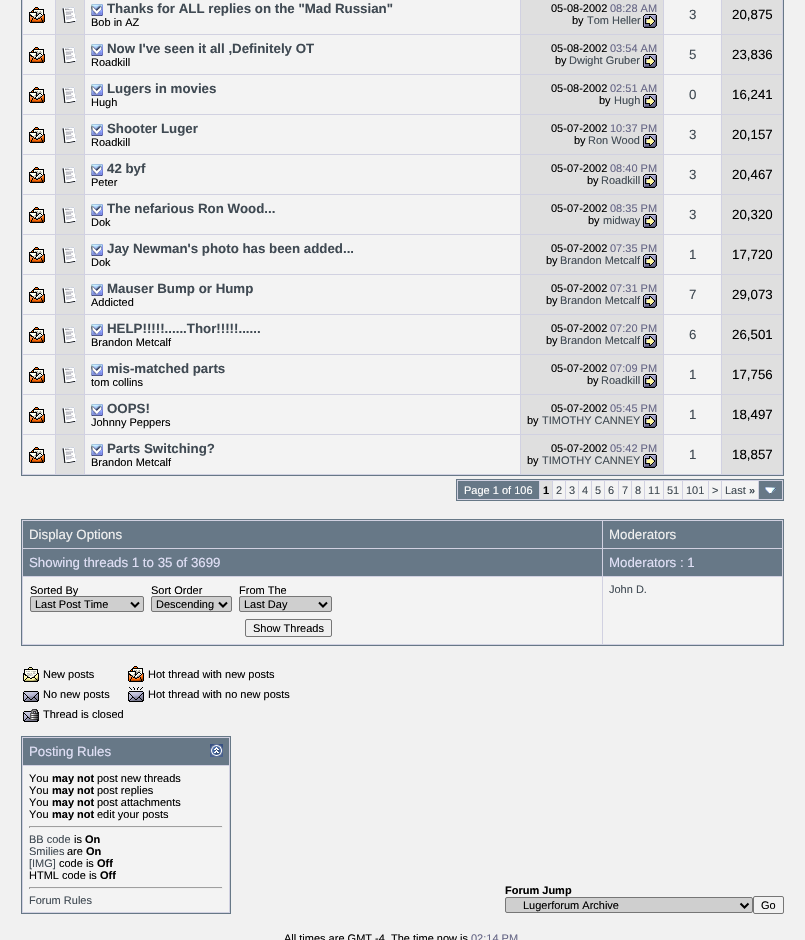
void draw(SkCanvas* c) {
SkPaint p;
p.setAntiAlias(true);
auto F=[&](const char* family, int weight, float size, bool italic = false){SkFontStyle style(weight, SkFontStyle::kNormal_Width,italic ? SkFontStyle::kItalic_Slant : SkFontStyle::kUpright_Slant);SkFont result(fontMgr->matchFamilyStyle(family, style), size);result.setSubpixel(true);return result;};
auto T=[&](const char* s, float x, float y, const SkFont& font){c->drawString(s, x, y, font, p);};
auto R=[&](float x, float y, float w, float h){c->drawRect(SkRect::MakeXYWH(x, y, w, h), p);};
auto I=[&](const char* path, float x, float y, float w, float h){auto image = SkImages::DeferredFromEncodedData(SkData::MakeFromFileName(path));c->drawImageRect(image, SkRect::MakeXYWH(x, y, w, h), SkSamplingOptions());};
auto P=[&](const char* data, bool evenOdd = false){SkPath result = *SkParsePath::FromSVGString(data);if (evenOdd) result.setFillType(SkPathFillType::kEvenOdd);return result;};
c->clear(0xfff1f1f1);
p.setColor(0xffd1d1e1);
c->drawRect(SkRect::MakeXYWH(21.5,-.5,762,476),p);
p.setStroke(true);
p.setStrokeWidth(1);
p.setColor(0xff677887);
c->drawRect(SkRect::MakeXYWH(21.5,-.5,762,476),p);
p.setStroke(false);
p.setColor(0xfff3f3f3);
R(23,0,32,34);
I("1.png",29,7,16,16);
p.setColor(0xffdfdfdf);
R(56,0,28,34);
I("2.png",62,7,15,16);
p.setColor(0xfff3f3f3);
R(85,0,435,34);
I("3.png",91,4,12,12);
auto f1 = F("Liberation Sans",700,13.3);
p.setColor(0xff404a53);
T("Thanks for ALL replies on the \"Mad Russian\"",107,13,f1);
auto f2 = F("Liberation Sans",400,11);
p.setColor(0xff000000);
T("Bob in AZ",91,26,f2);
p.setColor(0xffdfdfdf);
R(521,0,142,34);
p.setColor(0xff000000);
T("05-08-2002",551,12,f2);
p.setColor(0xff666686);
T("08:28 AM",610,12,f2);
p.setColor(0xff000000);
T("by",572,24,f2);
p.setColor(0xff404a53);
T("Tom Heller",587,24,f2);
I("4.png",643,14,14,14);
p.setColor(0xfff3f3f3);
R(664,0,57,34);
auto f3 = F("Liberation Sans",400,13.3);
p.setColor(0xff404a53);
T("3",689,19,f3);
p.setColor(0xffdfdfdf);
R(722,0,60,34);
p.setColor(0xff000000);
T("20,875",732,19,f3);
p.setColor(0xfff3f3f3);
R(23,35,32,39);
I("1.png",29,47,16,16);
p.setColor(0xffdfdfdf);
R(56,35,28,39);
I("2.png",62,47,15,16);
p.setColor(0xfff3f3f3);
R(85,35,435,39);
I("3.png",91,44,12,12);
p.setColor(0xff404a53);
T("Now I've seen it all ,Definitely OT",107,53,f1);
p.setColor(0xff000000);
T("Roadkill",91,66,f2);
p.setColor(0xffdfdfdf);
R(521,35,142,39);
p.setColor(0xff000000);
T("05-08-2002",551,52,f2);
p.setColor(0xff666686);
T("03:54 AM",610,52,f2);
p.setColor(0xff000000);
T("by",555,64,f2);
p.setColor(0xff404a53);
T("Dwight Gruber",569,64,f2);
I("4.png",643,54,14,14);
p.setColor(0xfff3f3f3);
R(664,35,57,39);
p.setColor(0xff404a53);
T("5",689,59,f3);
p.setColor(0xffdfdfdf);
R(722,35,60,39);
p.setColor(0xff000000);
T("23,836",732,59,f3);
p.setColor(0xfff3f3f3);
R(23,75,32,39);
I("1.png",29,87,16,16);
p.setColor(0xffdfdfdf);
R(56,75,28,39);
I("2.png",62,87,15,16);
p.setColor(0xfff3f3f3);
R(85,75,435,39);
I("3.png",91,84,12,12);
p.setColor(0xff404a53);
T("Lugers in movies",107,93,f1);
p.setColor(0xff000000);
T("Hugh",91,106,f2);
p.setColor(0xffdfdfdf);
R(521,75,142,39);
p.setColor(0xff000000);
T("05-08-2002",551,92,f2);
p.setColor(0xff666686);
T("02:51 AM",610,92,f2);
p.setColor(0xff000000);
T("by",599,104,f2);
p.setColor(0xff404a53);
T("Hugh",614,104,f2);
I("4.png",643,94,14,14);
p.setColor(0xfff3f3f3);
R(664,75,57,39);
p.setColor(0xff404a53);
T("0",689,99,f3);
p.setColor(0xffdfdfdf);
R(722,75,60,39);
p.setColor(0xff000000);
T("16,241",732,99,f3);
p.setColor(0xfff3f3f3);
R(23,115,32,39);
I("1.png",29,127,16,16);
p.setColor(0xffdfdfdf);
R(56,115,28,39);
I("2.png",62,127,15,16);
p.setColor(0xfff3f3f3);
R(85,115,435,39);
I("3.png",91,124,12,12);
p.setColor(0xff404a53);
T("Shooter Luger",107,133,f1);
p.setColor(0xff000000);
T("Roadkill",91,146,f2);
p.setColor(0xffdfdfdf);
R(521,115,142,39);
p.setColor(0xff000000);
T("05-07-2002",551,132,f2);
p.setColor(0xff666686);
T("10:37 PM",610,132,f2);
p.setColor(0xff000000);
T("by",574,144,f2);
p.setColor(0xff404a53);
T("Ron Wood",588,144,f2);
I("4.png",643,134,14,14);
p.setColor(0xfff3f3f3);
R(664,115,57,39);
p.setColor(0xff404a53);
T("3",689,139,f3);
p.setColor(0xffdfdfdf);
R(722,115,60,39);
p.setColor(0xff000000);
T("20,157",732,139,f3);
p.setColor(0xfff3f3f3);
R(23,155,32,39);
I("1.png",29,167,16,16);
p.setColor(0xffdfdfdf);
R(56,155,28,39);
I("2.png",62,167,15,16);
p.setColor(0xfff3f3f3);
R(85,155,435,39);
I("3.png",91,164,12,12);
p.setColor(0xff404a53);
T("42 byf",107,173,f1);
p.setColor(0xff000000);
T("Peter",91,186,f2);
p.setColor(0xffdfdfdf);
R(521,155,142,39);
p.setColor(0xff000000);
T("05-07-2002",551,172,f2);
p.setColor(0xff666686);
T("08:40 PM",610,172,f2);
p.setColor(0xff000000);
T("by",587,184,f2);
p.setColor(0xff404a53);
T("Roadkill",601,184,f2);
I("4.png",643,174,14,14);
p.setColor(0xfff3f3f3);
R(664,155,57,39);
p.setColor(0xff404a53);
T("3",689,179,f3);
p.setColor(0xffdfdfdf);
R(722,155,60,39);
p.setColor(0xff000000);
T("20,467",732,179,f3);
p.setColor(0xfff3f3f3);
R(23,195,32,39);
I("1.png",29,207,16,16);
p.setColor(0xffdfdfdf);
R(56,195,28,39);
I("2.png",62,207,15,16);
p.setColor(0xfff3f3f3);
R(85,195,435,39);
I("3.png",91,204,12,12);
p.setColor(0xff404a53);
T("The nefarious Ron Wood...",107,213,f1);
p.setColor(0xff000000);
T("Dok",91,226,f2);
p.setColor(0xffdfdfdf);
R(521,195,142,39);
p.setColor(0xff000000);
T("05-07-2002",551,212,f2);
p.setColor(0xff666686);
T("08:35 PM",610,212,f2);
p.setColor(0xff000000);
T("by",588,224,f2);
p.setColor(0xff404a53);
T("midway",603,224,f2);
I("4.png",643,214,14,14);
p.setColor(0xfff3f3f3);
R(664,195,57,39);
p.setColor(0xff404a53);
T("3",689,219,f3);
p.setColor(0xffdfdfdf);
R(722,195,60,39);
p.setColor(0xff000000);
T("20,320",732,219,f3);
p.setColor(0xfff3f3f3);
R(23,235,32,39);
I("1.png",29,247,16,16);
p.setColor(0xffdfdfdf);
R(56,235,28,39);
I("2.png",62,247,15,16);
p.setColor(0xfff3f3f3);
R(85,235,435,39);
I("3.png",91,244,12,12);
p.setColor(0xff404a53);
T("Jay Newman's photo has been added...",107,253,f1);
p.setColor(0xff000000);
T("Dok",91,266,f2);
p.setColor(0xffdfdfdf);
R(521,235,142,39);
p.setColor(0xff000000);
T("05-07-2002",551,252,f2);
p.setColor(0xff666686);
T("07:35 PM",610,252,f2);
p.setColor(0xff000000);
T("by",546,264,f2);
p.setColor(0xff404a53);
T("Brandon Metcalf",560,264,f2);
I("4.png",643,254,14,14);
p.setColor(0xfff3f3f3);
R(664,235,57,39);
p.setColor(0xff404a53);
T("1",689,259,f3);
p.setColor(0xffdfdfdf);
R(722,235,60,39);
p.setColor(0xff000000);
T("17,720",732,259,f3);
p.setColor(0xfff3f3f3);
R(23,275,32,39);
I("1.png",29,287,16,16);
p.setColor(0xffdfdfdf);
R(56,275,28,39);
I("2.png",62,287,15,16);
p.setColor(0xfff3f3f3);
R(85,275,435,39);
I("3.png",91,284,12,12);
p.setColor(0xff404a53);
T("Mauser Bump or Hump",107,293,f1);
p.setColor(0xff000000);
T("Addicted",91,306,f2);
p.setColor(0xffdfdfdf);
R(521,275,142,39);
p.setColor(0xff000000);
T("05-07-2002",551,292,f2);
p.setColor(0xff666686);
T("07:31 PM",610,292,f2);
p.setColor(0xff000000);
T("by",546,304,f2);
p.setColor(0xff404a53);
T("Brandon Metcalf",560,304,f2);
I("4.png",643,294,14,14);
p.setColor(0xfff3f3f3);
R(664,275,57,39);
p.setColor(0xff404a53);
T("7",689,299,f3);
p.setColor(0xffdfdfdf);
R(722,275,60,39);
p.setColor(0xff000000);
T("29,073",732,299,f3);
p.setColor(0xfff3f3f3);
R(23,315,32,39);
I("1.png",29,327,16,16);
p.setColor(0xffdfdfdf);
R(56,315,28,39);
I("2.png",62,327,15,16);
p.setColor(0xfff3f3f3);
R(85,315,435,39);
I("3.png",91,324,12,12);
p.setColor(0xff404a53);
T("HELP!!!!!......Thor!!!!!......",107,333,f1);
p.setColor(0xff000000);
T("Brandon Metcalf",91,346,f2);
p.setColor(0xffdfdfdf);
R(521,315,142,39);
p.setColor(0xff000000);
T("05-07-2002",551,332,f2);
p.setColor(0xff666686);
T("07:20 PM",610,332,f2);
p.setColor(0xff000000);
T("by",546,344,f2);
p.setColor(0xff404a53);
T("Brandon Metcalf",560,344,f2);
I("4.png",643,334,14,14);
p.setColor(0xfff3f3f3);
R(664,315,57,39);
p.setColor(0xff404a53);
T("6",689,339,f3);
p.setColor(0xffdfdfdf);
R(722,315,60,39);
p.setColor(0xff000000);
T("26,501",732,339,f3);
p.setColor(0xfff3f3f3);
R(23,355,32,39);
I("1.png",29,367,16,16);
p.setColor(0xffdfdfdf);
R(56,355,28,39);
I("2.png",62,367,15,16);
p.setColor(0xfff3f3f3);
R(85,355,435,39);
I("3.png",91,364,12,12);
p.setColor(0xff404a53);
T("mis-matched parts",107,373,f1);
p.setColor(0xff000000);
T("tom collins",91,386,f2);
p.setColor(0xffdfdfdf);
R(521,355,142,39);
p.setColor(0xff000000);
T("05-07-2002",551,372,f2);
p.setColor(0xff666686);
T("07:09 PM",610,372,f2);
p.setColor(0xff000000);
T("by",587,384,f2);
p.setColor(0xff404a53);
T("Roadkill",601,384,f2);
I("4.png",643,374,14,14);
p.setColor(0xfff3f3f3);
R(664,355,57,39);
p.setColor(0xff404a53);
T("1",689,379,f3);
p.setColor(0xffdfdfdf);
R(722,355,60,39);
p.setColor(0xff000000);
T("17,756",732,379,f3);
p.setColor(0xfff3f3f3);
R(23,395,32,39);
I("1.png",29,407,16,16);
p.setColor(0xffdfdfdf);
R(56,395,28,39);
I("2.png",62,407,15,16);
p.setColor(0xfff3f3f3);
R(85,395,435,39);
I("3.png",91,404,12,12);
p.setColor(0xff404a53);
T("OOPS!",107,413,f1);
p.setColor(0xff000000);
T("Johnny Peppers",91,426,f2);
p.setColor(0xffdfdfdf);
R(521,395,142,39);
p.setColor(0xff000000);
T("05-07-2002",551,412,f2);
p.setColor(0xff666686);
T("05:45 PM",610,412,f2);
p.setColor(0xff000000);
T("by",527,424,f2);
p.setColor(0xff404a53);
T("TIMOTHY CANNEY",542,424,f2);
I("4.png",643,414,14,14);
p.setColor(0xfff3f3f3);
R(664,395,57,39);
p.setColor(0xff404a53);
T("1",689,419,f3);
p.setColor(0xffdfdfdf);
R(722,395,60,39);
p.setColor(0xff000000);
T("18,497",732,419,f3);
p.setColor(0xfff3f3f3);
R(23,435,32,39);
I("1.png",29,447,16,16);
p.setColor(0xffdfdfdf);
R(56,435,28,39);
I("2.png",62,447,15,16);
p.setColor(0xfff3f3f3);
R(85,435,435,39);
I("3.png",91,444,12,12);
p.setColor(0xff404a53);
T("Parts Switching?",107,453,f1);
p.setColor(0xff000000);
T("Brandon Metcalf",91,466,f2);
p.setColor(0xffdfdfdf);
R(521,435,142,39);
p.setColor(0xff000000);
T("05-07-2002",551,452,f2);
p.setColor(0xff666686);
T("05:42 PM",610,452,f2);
p.setColor(0xff000000);
T("by",527,464,f2);
p.setColor(0xff404a53);
T("TIMOTHY CANNEY",542,464,f2);
I("4.png",643,454,14,14);
p.setColor(0xfff3f3f3);
R(664,435,57,39);
p.setColor(0xff404a53);
T("1",689,459,f3);
p.setColor(0xffdfdfdf);
R(722,435,60,39);
p.setColor(0xff000000);
T("18,857",732,459,f3);
p.setColor(0xffd1d1e1);
c->drawRect(SkRect::MakeXYWH(456.5,479.5,327,21),p);
p.setStroke(true);
p.setColor(0xff677887);
c->drawRect(SkRect::MakeXYWH(456.5,479.5,327,21),p);
p.setStroke(false);
R(458,481,81,18);
p.setColor(0xffffffff);
T("Page 1 of 106",464,494,f2);
p.setColor(0xffdfdfdf);
R(540,481,12,18);
auto f4 = F("Liberation Sans",700,11);
p.setColor(0xff000000);
T("1",543,494,f4);
p.setColor(0xfff3f3f3);
R(553,481,12,18);
p.setColor(0xff404a53);
T("2",556,494,f2);
p.setColor(0xfff3f3f3);
R(566,481,12,18);
p.setColor(0xff404a53);
T("3",569,494,f2);
p.setColor(0xfff3f3f3);
R(579,481,12,18);
p.setColor(0xff404a53);
T("4",582,494,f2);
p.setColor(0xfff3f3f3);
R(592,481,12,18);
p.setColor(0xff404a53);
T("5",595,494,f2);
p.setColor(0xfff3f3f3);
R(605,481,13,18);
p.setColor(0xff404a53);
T("6",608,494,f2);
p.setColor(0xfff3f3f3);
R(619,481,12,18);
p.setColor(0xff404a53);
T("7",622,494,f2);
p.setColor(0xfff3f3f3);
R(632,481,12,18);
p.setColor(0xff404a53);
T("8",635,494,f2);
p.setColor(0xfff3f3f3);
R(645,481,18,18);
p.setColor(0xff404a53);
T("11",648,494,f2);
p.setColor(0xfff3f3f3);
R(664,481,18,18);
p.setColor(0xff404a53);
T("51",667,494,f2);
p.setColor(0xfff3f3f3);
R(683,481,25,18);
p.setColor(0xff404a53);
T("101",686,494,f2);
p.setColor(0xfff3f3f3);
R(709,481,12,18);
p.setColor(0xff404a53);
T(">",712,494,f2);
p.setColor(0xfff3f3f3);
R(722,481,36,18);
p.setColor(0xff404a53);
T("Last",725,494,f2);
T("»",749,494,f4);
p.setColor(0xff677887);
R(759,481,23,18);
I("5.png",765,487,11,7);
p.setColor(0xffd1d1e1);
c->drawRect(SkRect::MakeXYWH(21.5,519.5,762,126),p);
p.setStroke(true);
p.setColor(0xff677887);
c->drawRect(SkRect::MakeXYWH(21.5,519.5,762,126),p);
p.setStroke(false);
R(23,521,579,27);
p.setColor(0xfff1f1f1);
T("Display Options",29,539,f3);
p.setColor(0xff677887);
R(603,521,179,27);
p.setColor(0xfff1f1f1);
T("Moderators",609,539,f3);
p.setColor(0xff677887);
R(23,549,579,27);
p.setColor(0xffe0e0f6);
T("Showing threads 1 to 35 of 3699",29,567,f3);
p.setColor(0xff677887);
R(603,549,179,27);
p.setColor(0xffe0e0f6);
T("Moderators : 1",609,567,f3);
p.setColor(0xfff3f3f3);
R(23,577,579,67);
p.setColor(0xff000000);
T("Sorted By",30,594,f2);
p.setColor(0xffcfcfcf);
c->drawRoundRect(SkRect::MakeXYWH(30.5,596.5,113,15),1.5,1.5,p);
p.setStroke(true);
p.setColor(0xff767676);
c->drawRoundRect(SkRect::MakeXYWH(30.5,596.5,113,15),1.5,1.5,p);
p.setStrokeWidth(2);
p.setColor(0xff000000);
c->drawPath(P("M131 602.5l4 4l4-4"),p);
p.setStroke(false);
T("Last Post Time",35,608,f2);
T("Sort Order",151,594,f2);
p.setColor(0xffcfcfcf);
c->drawRoundRect(SkRect::MakeXYWH(151.5,596.5,80,15),1.5,1.5,p);
p.setStroke(true);
p.setStrokeWidth(1);
p.setColor(0xff767676);
c->drawRoundRect(SkRect::MakeXYWH(151.5,596.5,80,15),1.5,1.5,p);
p.setStrokeWidth(2);
p.setColor(0xff000000);
c->drawPath(P("M219 602.5l4 4l4-4"),p);
p.setStroke(false);
T("Descending",156,608,f2);
T("From The",239,594,f2);
p.setColor(0xffcfcfcf);
c->drawRoundRect(SkRect::MakeXYWH(239.5,596.5,92,15),1.5,1.5,p);
p.setStroke(true);
p.setStrokeWidth(1);
p.setColor(0xff767676);
c->drawRoundRect(SkRect::MakeXYWH(239.5,596.5,92,15),1.5,1.5,p);
p.setStrokeWidth(2);
p.setColor(0xff000000);
c->drawPath(P("M319 602.5l4 4l4-4"),p);
p.setStroke(false);
T("Last Day",244,608,f2);
p.setColor(0xffefefef);
c->drawRoundRect(SkRect::MakeXYWH(245.5,619.5,86,17),1.5,1.5,p);
p.setStroke(true);
p.setStrokeWidth(1);
p.setColor(0xff767676);
c->drawRoundRect(SkRect::MakeXYWH(245.5,619.5,86,17),1.5,1.5,p);
p.setStroke(false);
p.setColor(0xff000000);
T("Show Threads",253,632,f2);
p.setColor(0xfff3f3f3);
R(603,577,179,67);
p.setColor(0xff404a53);
T("John D.",609,593,f2);
I("6.png",23,667,16,15);
p.setColor(0xff000000);
T("New posts",43,678,f2);
I("7.png",128,666,16,16);
T("Hot thread with new posts",148,678,f2);
I("8.png",23,691,16,11);
T("No new posts",43,698,f2);
I("9.png",128,687,16,15);
T("Hot thread with no new posts",148,698,f2);
I("10.png",23,709,16,13);
T("Thread is closed",43,718,f2);
p.setColor(0xffd1d1e1);
c->drawRect(SkRect::MakeXYWH(21.5,736.5,209,177),p);
p.setStroke(true);
p.setColor(0xff677887);
c->drawRect(SkRect::MakeXYWH(21.5,736.5,209,177),p);
p.setStroke(false);
R(23,738,206,27);
p.setColor(0xffe0e0f6);
T("Posting Rules",29,756,f3);
I("11.png",210,744,13,13);
p.setColor(0xfff3f3f3);
R(23,766,206,146);
p.setColor(0xff000000);
T("You",29,782,f2);
T("may not",52,782,f4);
T("post new threads",97,782,f2);
T("You",29,794,f2);
T("may not",52,794,f4);
T("post replies",97,794,f2);
T("You",29,806,f2);
T("may not",52,806,f4);
T("post attachments",97,806,f2);
T("You",29,818,f2);
T("may not",52,818,f4);
T("edit your posts",97,818,f2);
p.setColor(0xff9f9f9f);
R(29,826,194,1);
p.setColor(0xffeeeeee);
R(222,826,1,2);
R(29,827,194,1);
p.setColor(0xff9f9f9f);
R(29,826,1,2);
p.setColor(0xff404a53);
T("BB code",29,843,f2);
p.setColor(0xff000000);
T("is",74,843,f2);
T("On",85,843,f4);
p.setColor(0xff404a53);
T("Smilies",29,855,f2);
p.setColor(0xff000000);
T("are",67,855,f2);
T("On",86,855,f4);
p.setColor(0xff404a53);
T("[IMG]",29,867,f2);
p.setColor(0xff000000);
T("code is",59,867,f2);
T("Off",97,867,f4);
T("HTML code is",29,879,f2);
T("Off",100,879,f4);
p.setColor(0xff9f9f9f);
R(29,887,194,1);
p.setColor(0xffeeeeee);
R(222,887,1,2);
R(29,888,194,1);
p.setColor(0xff9f9f9f);
R(29,887,1,2);
p.setColor(0xff404a53);
T("Forum Rules",29,904,f2);
p.setColor(0xff000000);
T("Forum Jump",505,894,f4);
p.setColor(0xffcfcfcf);
c->drawRoundRect(SkRect::MakeXYWH(505.5,897.5,247,15),1.5,1.5,p);
p.setStroke(true);
p.setColor(0xff767676);
c->drawRoundRect(SkRect::MakeXYWH(505.5,897.5,247,15),1.5,1.5,p);
p.setStrokeWidth(2);
p.setColor(0xff000000);
c->drawPath(P("M740.5 903.5l4 4l4-4"),p);
p.setStroke(false);
T("Lugerforum Archive",523,909,f2);
p.setStroke(true);
p.setStrokeWidth(1);
p.setColor(0xff767676);
c->drawRoundRect(SkRect::MakeXYWH(753.5,896.5,30,17),1.5,1.5,p);
p.setStroke(false);
p.setColor(0xff000000);
T("Go",761,909,f2);
T("All times are GMT -4. The time now is",284,942,f2);
p.setColor(0xff666686);
T("02:14 PM",471,942,f2);
}
